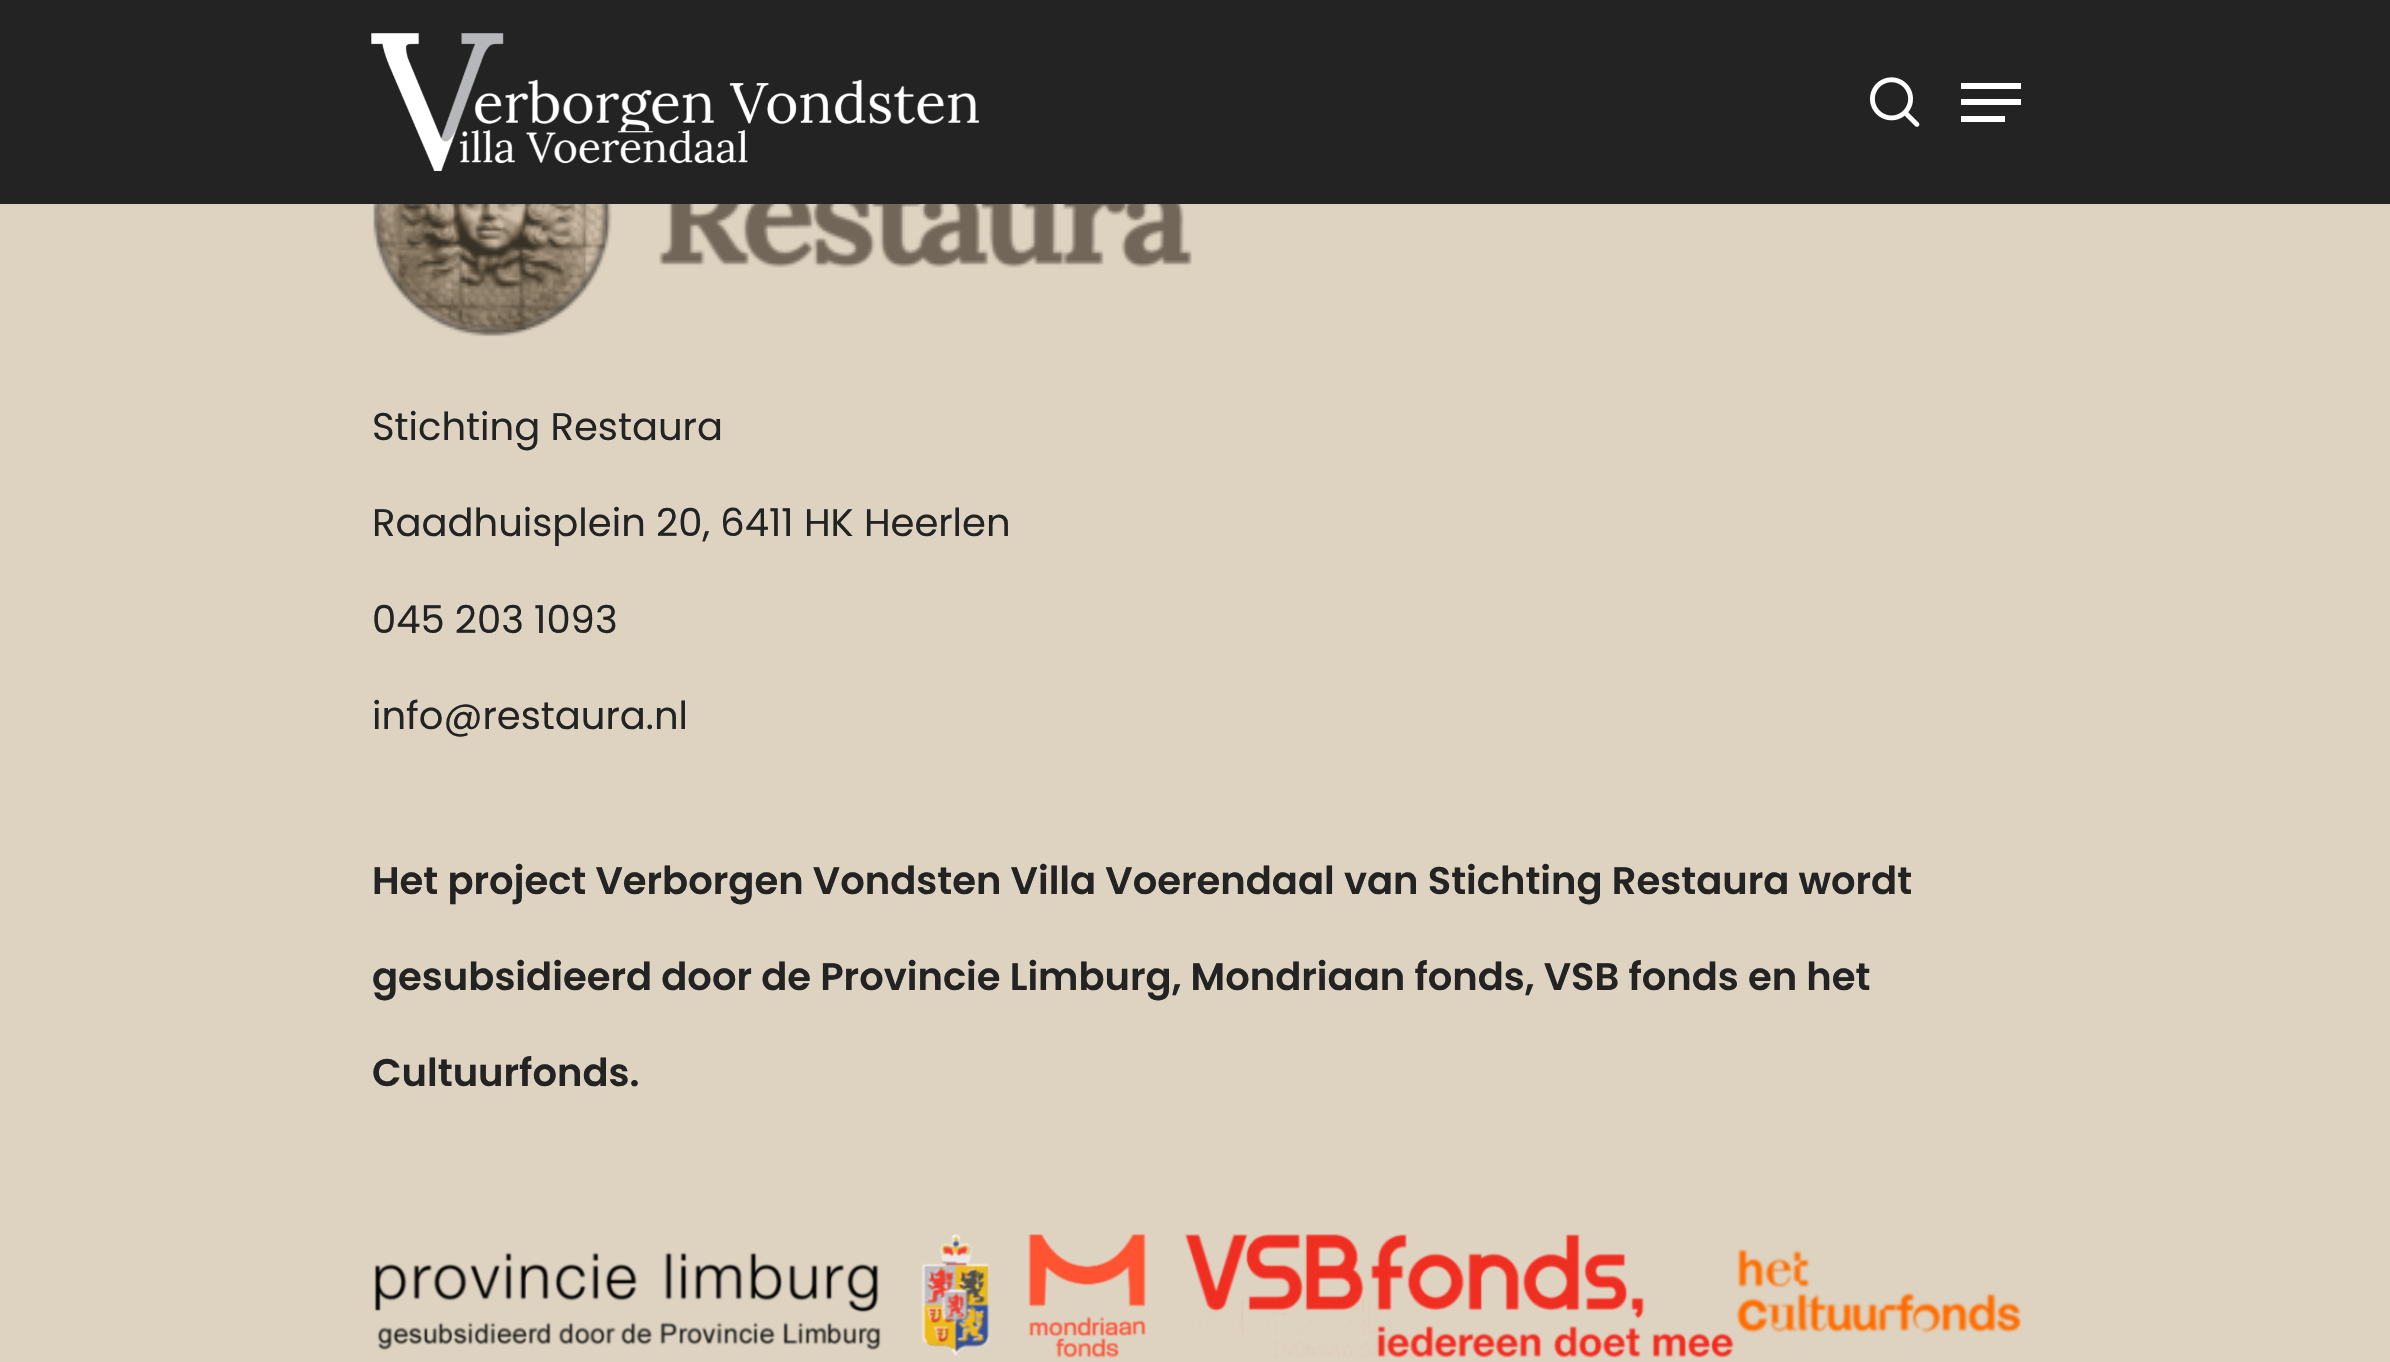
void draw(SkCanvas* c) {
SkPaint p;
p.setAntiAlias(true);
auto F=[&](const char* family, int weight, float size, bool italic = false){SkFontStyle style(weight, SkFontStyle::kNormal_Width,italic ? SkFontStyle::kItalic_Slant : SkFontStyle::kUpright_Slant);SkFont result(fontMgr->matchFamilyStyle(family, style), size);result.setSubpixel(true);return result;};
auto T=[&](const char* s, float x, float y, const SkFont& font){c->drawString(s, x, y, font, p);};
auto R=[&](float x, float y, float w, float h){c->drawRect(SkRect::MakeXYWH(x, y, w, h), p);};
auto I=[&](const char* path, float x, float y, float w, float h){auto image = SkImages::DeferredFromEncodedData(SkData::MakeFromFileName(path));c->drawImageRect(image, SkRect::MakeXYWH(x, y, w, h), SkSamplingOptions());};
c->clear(0xffded3c1);
p.setColor(0xff232323);
R(0,0,2390,204);
I("1.png",371,33,608,138);
I("2.png",1870,77,50,50);
p.setColor(0xffffffff);
R(1961,83,60,6);
R(1961,116,44,6);
R(1961,99,60,6);
I("3.png",373,204,819,133);
auto f1 = F("Poppins",400,38.5);
p.setColor(0xff232323);
T("Stichting Restaura",372,440,f1);
T("Raadhuisplein 20, 6411 HK Heerlen",372,536,f1);
T("045 203 1093",372,633,f1);
T("info@restaura.nl",372,729,f1);
auto f2 = F("Poppins",600,38.5);
T("Het project Verborgen Vondsten Villa Voerendaal van Stichting Restaura wordt",372,894,f2);
T("gesubsidieerd door de Provincie Limburg, Mondriaan fonds, VSB fonds en het",372,990,f2);
T("Cultuurfonds.",372,1086,f2);
I("4.png",374,1234,1648,124);
}
